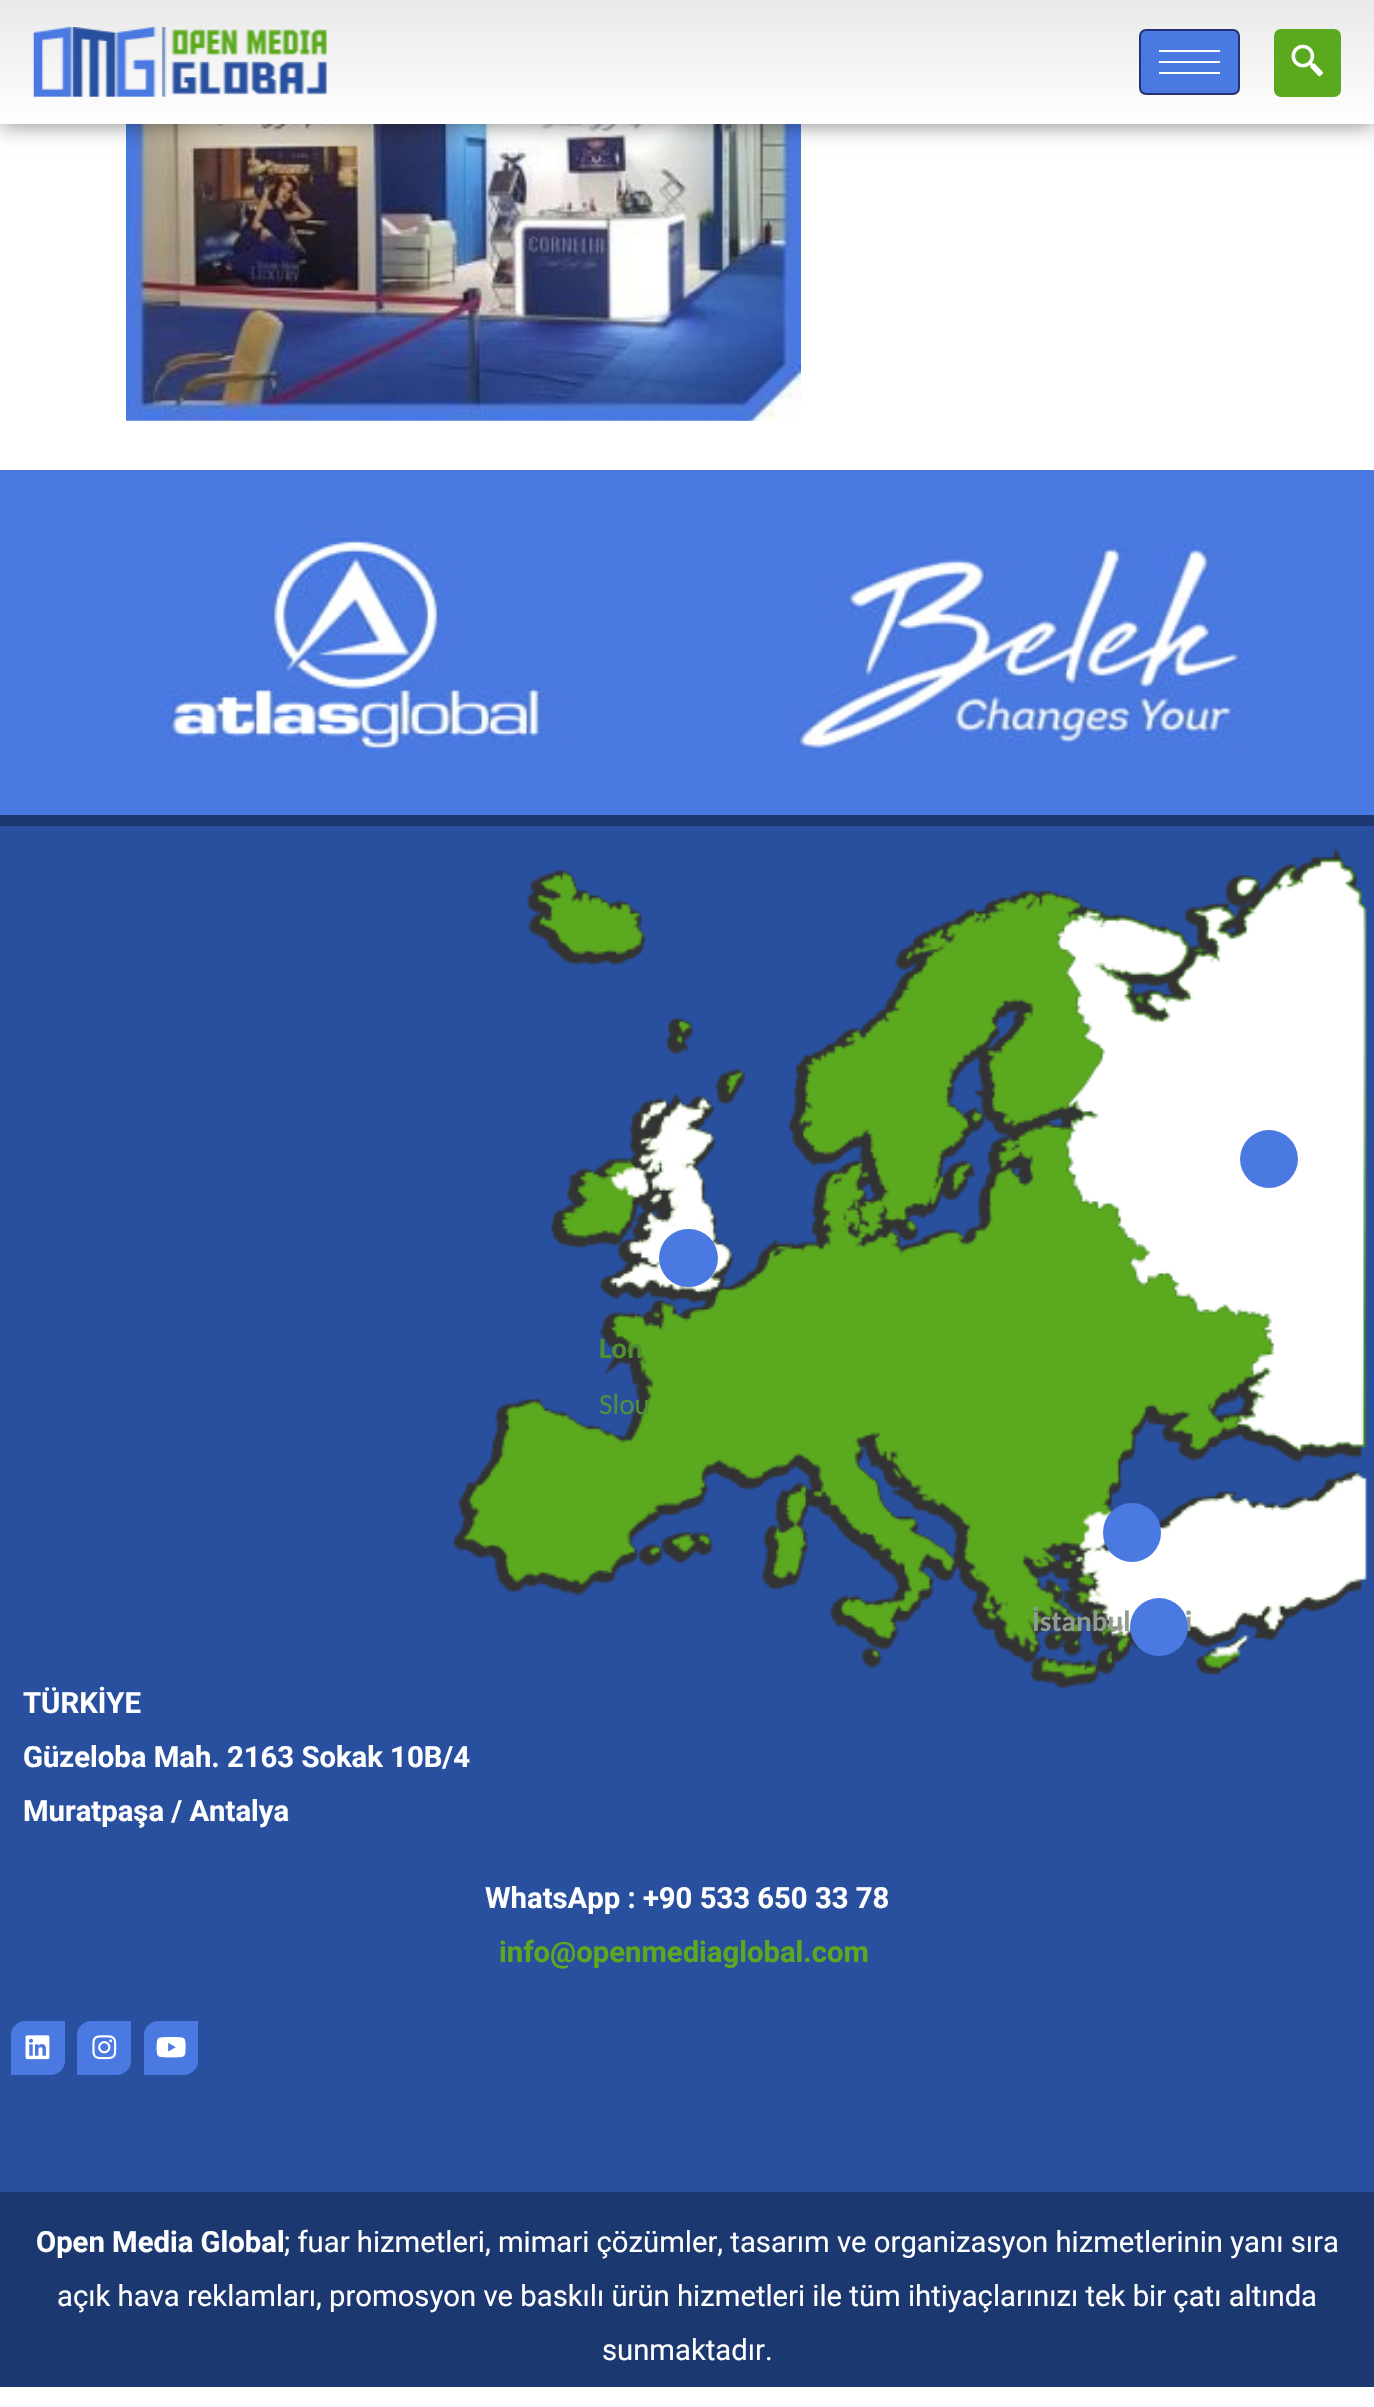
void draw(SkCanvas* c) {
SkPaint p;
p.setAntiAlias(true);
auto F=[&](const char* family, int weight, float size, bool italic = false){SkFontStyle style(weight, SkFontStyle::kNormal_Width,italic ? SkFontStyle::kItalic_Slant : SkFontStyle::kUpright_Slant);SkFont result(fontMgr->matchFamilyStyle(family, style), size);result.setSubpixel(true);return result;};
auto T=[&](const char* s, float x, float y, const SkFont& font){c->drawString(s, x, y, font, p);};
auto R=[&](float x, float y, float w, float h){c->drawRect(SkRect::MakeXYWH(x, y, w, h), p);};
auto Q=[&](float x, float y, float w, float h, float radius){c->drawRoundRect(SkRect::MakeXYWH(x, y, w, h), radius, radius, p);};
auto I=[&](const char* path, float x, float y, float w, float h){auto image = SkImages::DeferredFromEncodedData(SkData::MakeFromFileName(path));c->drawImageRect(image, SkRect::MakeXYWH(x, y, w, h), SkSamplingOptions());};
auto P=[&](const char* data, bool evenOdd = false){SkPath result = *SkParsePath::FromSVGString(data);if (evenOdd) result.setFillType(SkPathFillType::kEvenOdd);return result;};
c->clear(0xffffffff);
I("3.png",126,124,675,297);
p.setColor(0x80000000);
p.setMaskFilter(SkMaskFilter::MakeBlur(kNormal_SkBlurStyle, 11));
c->drawRect(SkRect::MakeXYWH(0,0,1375,124),p);
p.setMaskFilter(nullptr);
{
const SkColor colors[] = {0xffe9e9e9,0xffffffff};
const float stops[] = {0,1};
const SkPoint ends[] = {{687,0}, {687,124}};
p.setShader(SkGradientShader::MakeLinear(ends, colors, stops, 2, SkTileMode::kClamp));
p.setAlpha(255);
}
R(0,0,1374,124);
I("1.png",33,27,294,70);
p.setShader(nullptr);
p.setColor(0xff4a79e1);
c->drawRoundRect(SkRect::MakeXYWH(1140,30,99,64),6,6,p);
p.setStroke(true);
p.setStrokeWidth(2);
p.setColor(0xff273171);
c->drawRoundRect(SkRect::MakeXYWH(1140,30,99,64),6,6,p);
p.setStroke(false);
p.setColor(0xffffffff);
R(1159,50,61,2);
R(1159,61,61,2);
R(1159,72,61,2);
p.setColor(0xff5ba91f);
Q(1274,29,67,68,7);
I("2.png",1291,44,32,33);
p.setColor(0xff4a79e1);
R(0,470,1374,345);
I("4.png",166,527,397,225);
I("5.png",794,544,451,208);
p.setColor(0xff29509f);
R(0,826,1374,1366);
p.setColor(0xff1c3871);
R(0,815,1374,11);
I("6.png",452,848,916,840);
p.setColor(0xff4a79e1);
c->drawCircle(1269,1159,29,p);
Q(659,1229,59,58,29);
auto f1 = F("Carlito",700,29.25);
p.setColor(0xff51902f);
T("Lon",599,1358,f1);
auto f2 = F("Carlito",400,29.25);
p.setColor(0xff4e903d);
T("Slou",599,1414,f2);
p.setColor(0xff909c91);
T("i",1185,1631,f1);
p.setColor(0xff4a79e1);
c->drawCircle(1159,1627,29,p);
Q(1103,1503,58,59,29);
p.setColor(0xff909c91);
T("İstanbul",1032,1631,f1);
auto f3 = F("Roboto",700,29.25);
p.setColor(0xffffffff);
T("TÜRKİYE",23,1713,f3);
T("Güzeloba Mah. 2163 Sokak 10B/4",23,1767,f3);
T("Muratpaşa / Antalya",23,1821,f3);
T("WhatsApp : +90 533 650 33 78",485,1908,f3);
p.setColor(0xff5ba91f);
T("info@openmediaglobal.com",499,1962,f3);
p.setColor(0xff4a79e1);
c->drawPath(P("M25 2021h40v40c0 7.5-6.5 14-14 14h-40v-40c0-7.5 6.5-14 14-14z"),p);
I("7.png",25,2035,25,25);
c->drawPath(P("M91 2021h40v40c0 7.5-6.5 14-14 14h-40v-40c0-7.5 6.5-14 14-14z"),p);
I("8.png",92,2035,25,25);
c->drawPath(P("M158 2021h40v40c0 7.5-6.5 14-14 14h-40v-40c0-7.5 6.5-14 14-14z"),p);
I("9.png",156,2037,30,21);
p.setColor(0xff1c3871);
R(0,2192,1374,195);
p.setColor(0xffffffff);
T("Open Media Global",36,2252,f3);
auto f4 = F("Roboto",400,29.25);
T("; fuar hizmetleri, mimari çözümler, tasarım ve organizasyon hizmetlerinin yanı sıra",284,2252,f4);
T("açık hava reklamları, promosyon ve baskılı ürün hizmetleri ile tüm ihtiyaçlarınızı tek bir çatı altında",57,2306,f4);
T("sunmaktadır.",602,2360,f4);
}
